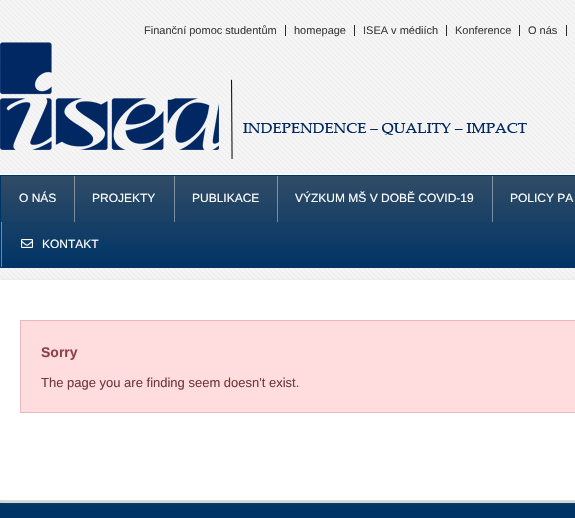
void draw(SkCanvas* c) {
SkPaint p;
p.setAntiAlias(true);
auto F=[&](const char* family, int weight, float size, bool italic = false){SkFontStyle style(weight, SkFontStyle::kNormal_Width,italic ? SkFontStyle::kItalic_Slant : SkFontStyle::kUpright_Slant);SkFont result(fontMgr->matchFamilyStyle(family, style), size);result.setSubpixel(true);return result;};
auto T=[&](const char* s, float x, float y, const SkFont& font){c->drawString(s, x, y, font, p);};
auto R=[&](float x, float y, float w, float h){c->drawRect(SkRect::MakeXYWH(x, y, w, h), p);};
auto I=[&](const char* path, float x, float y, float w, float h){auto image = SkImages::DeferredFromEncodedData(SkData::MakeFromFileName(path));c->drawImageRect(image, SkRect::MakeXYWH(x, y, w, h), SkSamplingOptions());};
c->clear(0xfff5f5f5);
I("1.png",0,0,575,280);
p.setColor(0xff2d2b2b);
R(285,25,1,11);
auto f1 = F("Liberation Sans",400,11);
p.setColor(0xff403d3d);
T("Finanční pomoc studentům",144,34,f1);
p.setColor(0xff2d2b2b);
R(354,25,1,11);
p.setColor(0xff403d3d);
T("homepage",294,34,f1);
p.setColor(0xff2d2b2b);
R(446,25,1,11);
p.setColor(0xff403d3d);
T("ISEA v médiích",363,34,f1);
p.setColor(0xff2d2b2b);
R(519,25,1,11);
p.setColor(0xff403d3d);
T("Konference",455,34,f1);
p.setColor(0xff2d2b2b);
R(566,25,1,11);
p.setColor(0xff403d3d);
T("O nás",528,34,f1);
I("2.png",0,42,527,117);
p.setColor(0xffffffff);
R(0,174,575,1);
{
const SkColor colors[] = {0xff314c66,0xff003466};
const float stops[] = {0,1};
const SkPoint ends[] = {{490,176}, {490,267}};
p.setShader(SkGradientShader::MakeLinear(ends, colors, stops, 2, SkTileMode::kClamp));
p.setAlpha(255);
}
R(1,176,574,91);
p.setStroke(true);
p.setStrokeWidth(1);
p.setShader(nullptr);
p.setColor(0xff003466);
c->drawRect(SkRect::MakeXYWH(.5,175.5,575,92),p);
auto f2 = F("Liberation Sans",400,12);
p.setStroke(false);
p.setColor(0xffffffff);
T("O NÁS",19,202,f2);
p.setColor(0x66ffffff);
R(74,176,1,46);
p.setColor(0xffffffff);
T("PROJEKTY",92,202,f2);
p.setColor(0x66ffffff);
R(174,176,1,46);
p.setColor(0xffffffff);
T("PUBLIKACE",192,202,f2);
p.setColor(0x66ffffff);
R(277,176,1,46);
p.setColor(0xffffffff);
T("VÝZKUM MŠ V DOBĚ COVID-19",295,202,f2);
p.setColor(0x66ffffff);
R(492,176,1,46);
p.setColor(0xffffffff);
T("POLICY PA",510,202,f2);
p.setColor(0x66ffffff);
R(1,222,1,45);
I("3.png",21,239,12,9);
p.setColor(0xffffffff);
T("KONTAKT",42,248,f2);
p.setColor(0xffd2d2d2);
R(0,500,575,3);
p.setColor(0xff003466);
R(0,503,575,15);
I("4.png",0,503,575,15);
p.setColor(0xffe5e5e5);
p.setMaskFilter(SkMaskFilter::MakeBlur(kNormal_SkBlurStyle, 2));
c->drawRect(SkRect::MakeXYWH(0,280,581,220),p);
p.setMaskFilter(nullptr);
p.setColor(0xffffffff);
R(0,280,575,220);
p.setColor(0xffffdcdd);
c->drawRect(SkRect::MakeXYWH(20.5,320.5,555,92),p);
p.setStroke(true);
p.setColor(0xffe9b9bb);
c->drawRect(SkRect::MakeXYWH(20.5,320.5,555,92),p);
auto f3 = F("Liberation Sans",700,14);
p.setStroke(false);
p.setColor(0xff8d4345);
T("Sorry",41,357,f3);
auto f4 = F("Liberation Sans",400,13);
p.setColor(0xff713a3c);
T("The page you are finding seem doesn't exist.",41,387,f4);
}
